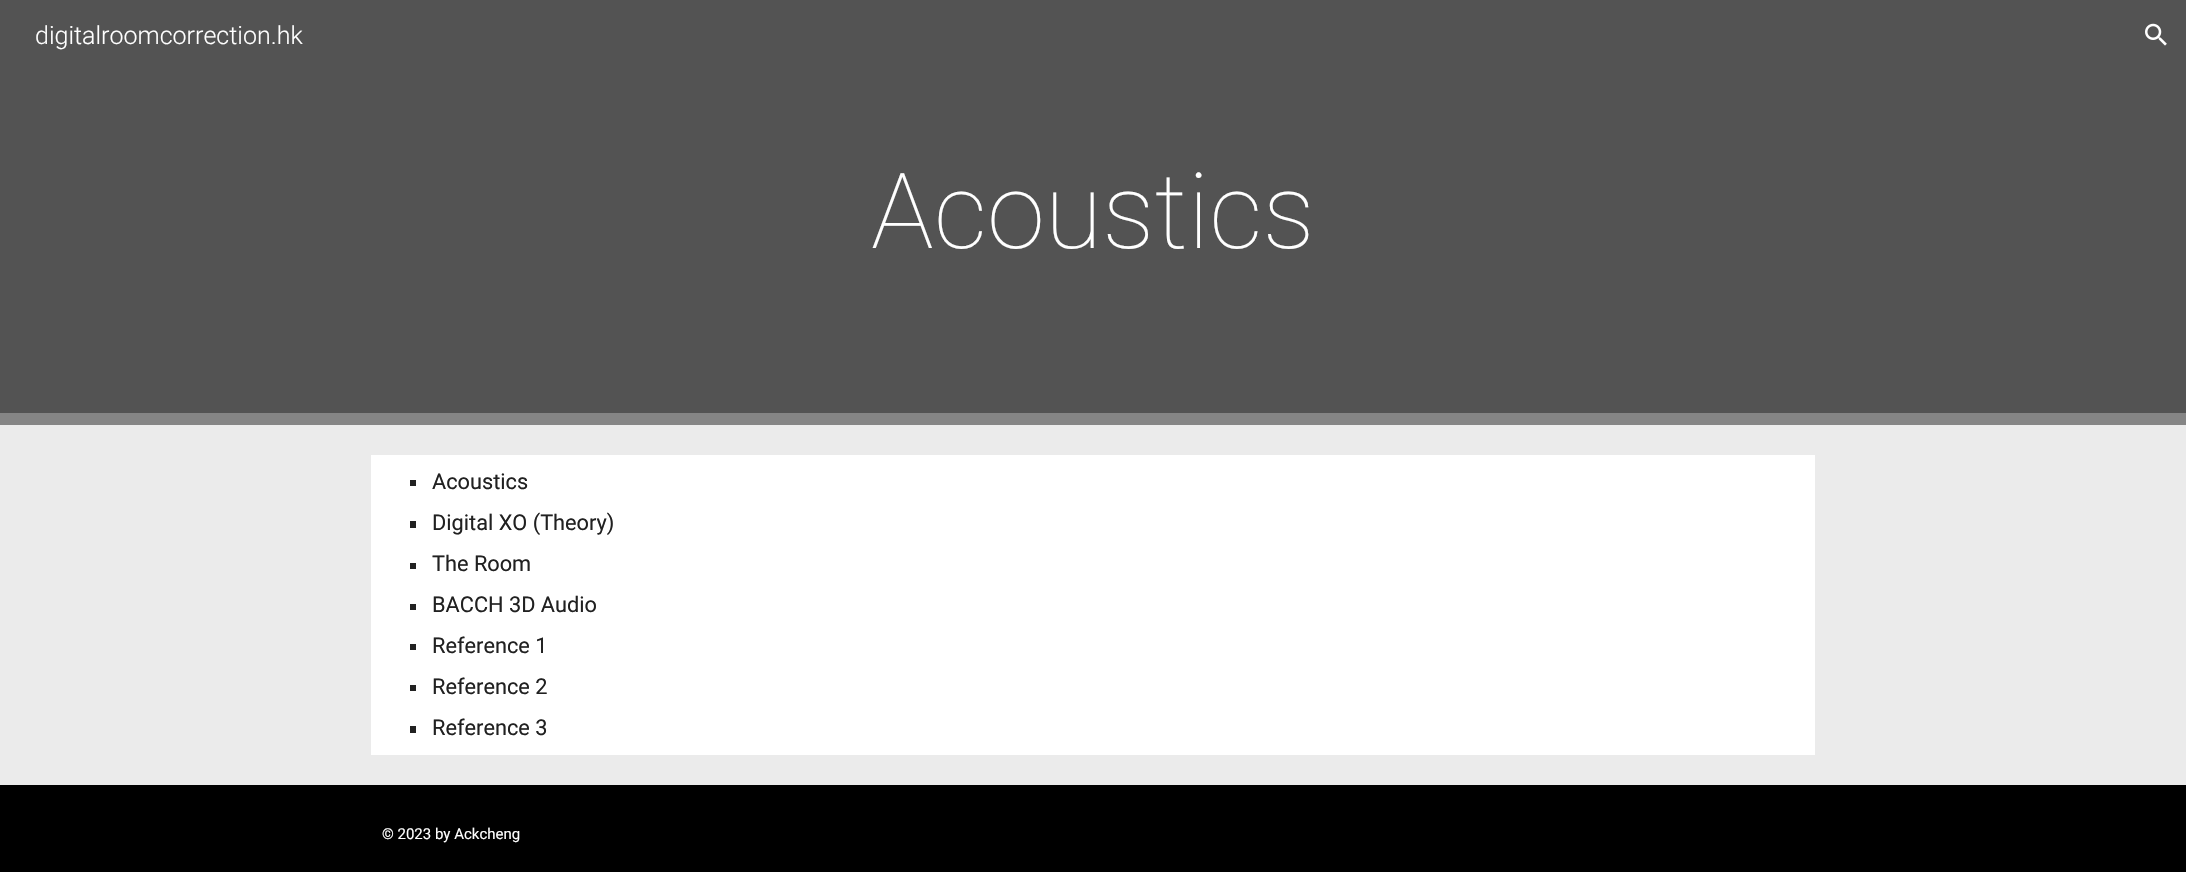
void draw(SkCanvas* c) {
SkPaint p;
p.setAntiAlias(true);
auto F=[&](const char* family, int weight, float size, bool italic = false){SkFontStyle style(weight, SkFontStyle::kNormal_Width,italic ? SkFontStyle::kItalic_Slant : SkFontStyle::kUpright_Slant);SkFont result(fontMgr->matchFamilyStyle(family, style), size);result.setSubpixel(true);return result;};
auto T=[&](const char* s, float x, float y, const SkFont& font){c->drawString(s, x, y, font, p);};
auto R=[&](float x, float y, float w, float h){c->drawRect(SkRect::MakeXYWH(x, y, w, h), p);};
auto I=[&](const char* path, float x, float y, float w, float h){auto image = SkImages::DeferredFromEncodedData(SkData::MakeFromFileName(path));c->drawImageRect(image, SkRect::MakeXYWH(x, y, w, h), SkSamplingOptions());};
c->clear(0xffebebeb);
p.setColor(0xff535353);
R(0,0,2186,413);
auto f1 = F("Roboto",300,25);
p.setColor(0xffffffff);
T("digitalroomcorrection.hk",35,44,f1);
I("1.png",2145,23,22,23);
p.setColor(0xff858585);
R(0,413,2186,12);
auto f2 = F("Roboto",100,105);
p.setColor(0xffffffff);
T("Acoustics",871,248,f2);
R(371,455,1444,300);
p.setColor(0xff212121);
R(410,480,6,6);
auto f3 = F("Roboto",400,21.75);
T("Acoustics",432,489,f3);
R(410,521,6,7);
T("Digital XO (Theory)",432,530,f3);
R(410,563,6,6);
T("The Room",432,571,f3);
R(410,604,6,6);
T("BACCH 3D Audio",432,612,f3);
R(410,644,6,6);
T("Reference 1",432,653,f3);
R(410,685,6,6);
T("Reference 2",432,694,f3);
R(410,726,6,7);
T("Reference 3",432,735,f3);
p.setColor(0xff000000);
R(0,785,2186,87);
auto f4 = F("Roboto",400,15);
p.setColor(0xffffffff);
T("© 2023 by Ackcheng",382,839,f4);
}
